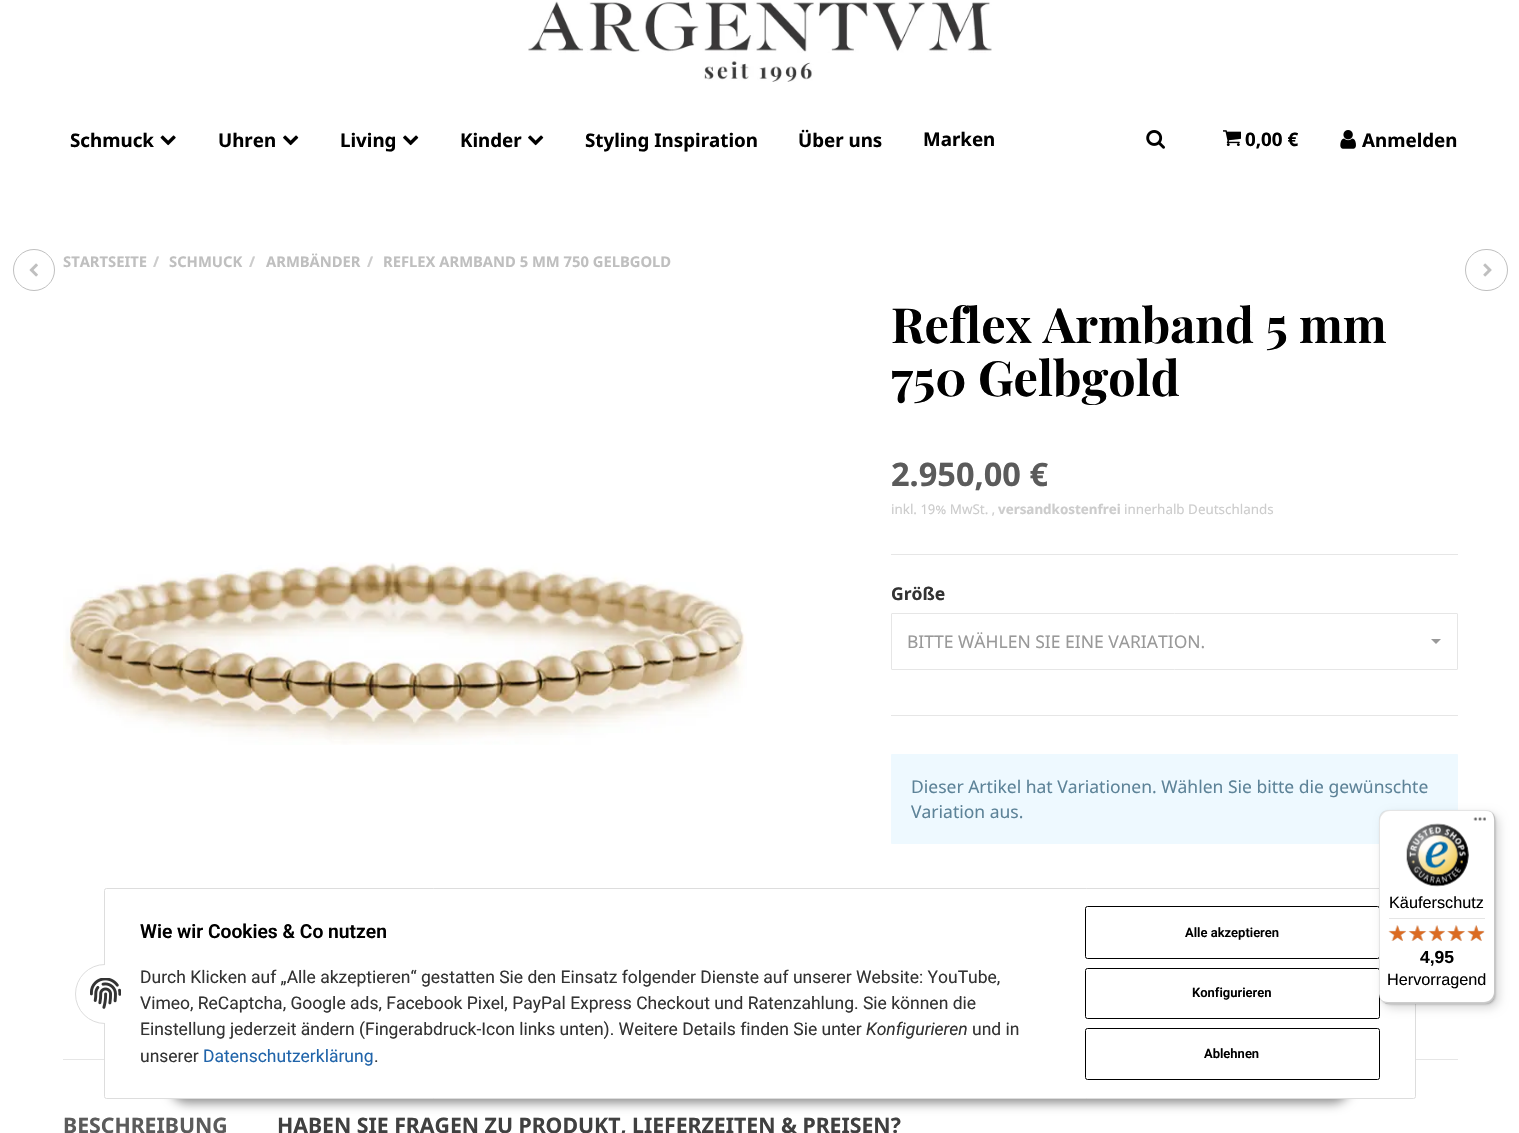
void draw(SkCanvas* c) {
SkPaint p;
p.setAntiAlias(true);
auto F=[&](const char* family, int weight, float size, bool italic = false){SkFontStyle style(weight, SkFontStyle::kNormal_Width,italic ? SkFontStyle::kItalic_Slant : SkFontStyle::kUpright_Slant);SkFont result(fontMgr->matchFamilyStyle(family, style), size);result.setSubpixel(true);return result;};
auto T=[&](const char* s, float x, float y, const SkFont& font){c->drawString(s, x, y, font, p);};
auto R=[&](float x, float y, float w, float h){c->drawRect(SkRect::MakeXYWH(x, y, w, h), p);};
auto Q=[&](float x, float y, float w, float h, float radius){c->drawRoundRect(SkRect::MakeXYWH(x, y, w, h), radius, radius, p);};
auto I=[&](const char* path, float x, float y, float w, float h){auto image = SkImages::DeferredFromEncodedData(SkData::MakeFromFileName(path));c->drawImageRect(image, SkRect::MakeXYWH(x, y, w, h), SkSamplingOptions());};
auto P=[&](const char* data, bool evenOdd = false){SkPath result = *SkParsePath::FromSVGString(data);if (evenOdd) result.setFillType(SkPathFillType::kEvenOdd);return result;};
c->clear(0xffffffff);
I("1.png",528,1,464,81);
auto f1 = F("Noto Sans",700,18.75);
p.setColor(0xff000000);
T("Schmuck",70,147,f1);
I("2.png",160,135,16,11);
T("Uhren",218,147,f1);
I("3.png",283,135,16,11);
T("Living",340,147,f1);
I("3.png",403,135,16,11);
T("Kinder",460,147,f1);
I("3.png",528,135,16,11);
T("Styling Inspiration",585,147,f1);
T("Über uns",798,147,f1);
T("Marken",923,146,f1);
I("4.png",1146,130,19,19);
I("5.png",1223,130,18,16);
T("0,00 €",1245,146,f1);
I("6.png",1340,130,16,19);
T("Anmelden",1362,147,f1);
p.setStroke(true);
p.setStrokeWidth(1);
p.setColor(0xffbfbfbf);
c->drawCircle(34,270,20.5,p);
I("7.png",29,263,9,14);
auto f2 = F("Noto Sans",700,14.75);
p.setStroke(false);
T("STARTSEITE",63,267,f2);
p.setColor(0xffcccccc);
T("/",153,267,f2);
p.setColor(0xffbfbfbf);
T("SCHMUCK",169,267,f2);
p.setColor(0xffcccccc);
T("/",249,267,f2);
p.setColor(0xffbfbfbf);
T("ARMBÄNDER",266,267,f2);
p.setColor(0xffcccccc);
T("/",367,267,f2);
p.setColor(0xffbfbfbf);
T("REFLEX ARMBAND 5 MM 750 GELBGOLD",383,267,f2);
I("8.png",63,562,684,183);
auto f3 = F("Playfair Display",700,48.5);
p.setColor(0xff000000);
T("Reflex Armband 5 mm",891,343,f3);
T("750 Gelbgold",891,396,f3);
auto f4 = F("Noto Sans",700,32.5);
p.setColor(0xff5b5b5b);
T("2.950,00 €",891,486,f4);
auto f5 = F("Noto Sans",400,13.4);
p.setColor(0xffcccccc);
T("inkl. 19% MwSt. ,",891,514,f5);
auto f6 = F("Noto Sans",700,13.4);
T("versandkostenfrei",998,514,f6);
T("innerhalb Deutschlands",1124,514,f5);
p.setColor(0xffe6e6e6);
R(891,554,567,1);
auto f7 = F("Noto Sans",700,17.5);
p.setColor(0xff333333);
T("Größe",891,600,f7);
p.setStroke(true);
p.setColor(0xffe6e6e6);
c->drawRoundRect(SkRect::MakeXYWH(891.5,613.5,566,56),.5,.5,p);
auto f8 = F("Noto Sans",400,17.5);
p.setStroke(false);
p.setColor(0xff999999);
T("BITTE WÄHLEN SIE EINE VARIATION.",907,648,f8);
c->drawPath(P("M1431 639h10l-5 5z"),p);
p.setColor(0xffe6e6e6);
R(891,715,567,1);
p.setColor(0xffeef9ff);
Q(891,754,567,90,1);
p.setColor(0xff5d8398);
T("Dieser Artikel hat Variationen. Wählen Sie bitte die gewünschte",911,793,f8);
T("Variation aus.",911,818,f8);
p.setColor(0xffe6e6e6);
R(63,1059,1395,1);
auto f9 = F("Noto Sans",700,21.25);
p.setColor(0xff5b5b5b);
T("BESCHREIBUNG",63,1133,f9);
p.setColor(0xff404040);
T("HABEN SIE FRAGEN ZU PRODUKT, LIEFERZEITEN & PREISEN?",277,1133,f9);
p.setStroke(true);
p.setColor(0xffbfbfbf);
c->drawRoundRect(SkRect::MakeXYWH(1465.5,249.5,42,41),20.5,20.5,p);
I("9.png",1483,263,9,14);
p.setStroke(false);
p.setColor(0x73000000);
p.setMaskFilter(SkMaskFilter::MakeBlur(kNormal_SkBlurStyle, 5.5));
c->drawRoundRect(SkRect::MakeXYWH(170,1068,1180,35),17.5,17.5,p);
p.setMaskFilter(nullptr);
p.setColor(0xffffffff);
c->drawRoundRect(SkRect::MakeXYWH(104.5,888.5,1311,210),2,2,p);
p.setStroke(true);
p.setColor(0xffdddddd);
c->drawRoundRect(SkRect::MakeXYWH(104.5,888.5,1311,210),2,2,p);
p.setStroke(false);
p.setColor(0xffffffff);
c->drawCircle(105,994,29.5,p);
p.setStroke(true);
p.setColor(0xffdddddd);
c->drawCircle(105,994,29.5,p);
p.setStroke(false);
p.setColor(0xffffffff);
R(105,964,30,60);
I("10.png",90,978,31,31);
auto f10 = F("Roboto",600,19.25);
p.setColor(0xff000000);
T("Wie wir Cookies & Co nutzen",140,938,f10);
auto f11 = F("Roboto",400,17.5);
p.setColor(0xff333333);
T("Durch Klicken auf „Alle akzeptieren“ gestatten Sie den Einsatz folgender Dienste auf unserer Website: YouTube,",140,983,f11);
T("Vimeo, ReCaptcha, Google ads, Facebook Pixel, PayPal Express Checkout und Ratenzahlung. Sie können die",140,1009,f11);
T("Einstellung jederzeit ändern (Fingerabdruck-Icon links unten). Weitere Details finden Sie unter",140,1035,f11);
auto f12 = F("Roboto",400,17.5,true);
T("Konfigurieren",866,1035,f12);
T("und in",972,1035,f11);
T("unserer",140,1062,f11);
p.setColor(0xff2064aa);
T("Datenschutzerklärung",203,1062,f11);
p.setColor(0xff333333);
T(".",374,1062,f11);
p.setStroke(true);
p.setColor(0xff000000);
c->drawRoundRect(SkRect::MakeXYWH(1085.5,906.5,294,52),2,2,p);
auto f13 = F("Roboto",600,13);
p.setStroke(false);
T("Alle akzeptieren",1185,937,f13);
p.setStroke(true);
c->drawRoundRect(SkRect::MakeXYWH(1085.5,968.5,294,50),2,2,p);
p.setStroke(false);
T("Konfigurieren",1192,997,f13);
p.setStroke(true);
c->drawRoundRect(SkRect::MakeXYWH(1085.5,1028.5,294,51),2,2,p);
p.setStroke(false);
T("Ablehnen",1204,1058,f13);
p.setColor(0x26000000);
p.setMaskFilter(SkMaskFilter::MakeBlur(kNormal_SkBlurStyle, 5));
c->drawRoundRect(SkRect::MakeXYWH(1383,814,116,194),10,10,p);
p.setMaskFilter(nullptr);
p.setMaskFilter(SkMaskFilter::MakeBlur(kNormal_SkBlurStyle, 1));
c->drawRoundRect(SkRect::MakeXYWH(1380,811,116,194),10,10,p);
p.setMaskFilter(nullptr);
p.setColor(0xffffffff);
Q(1379,810,116,194,10);
p.setColor(0x1a000000);
c->drawPath(P("M1390 811h96c3 0 5 1 7 2c-2-2-5-3-8-3h-96c-6 0-10 4-10 10v174c0 2 1 5 2 6c-1-1-1-3-1-5v-174c0-5 4-10 10-10z"),p);
p.setColor(0x33000000);
c->drawPath(P("M1380 998c2 4 5 6 9 6h96c6 0 10-4 10-10v-174c0-3-1-6-3-8c1 2 2 4 2 7v173c0 6-5 10-10 10h-96c-3 0-6-1-8-4z"),p);
p.setColor(0x33323232);
c->drawPath(P("M1383 1002c1 1 4 2 6 2h96c6 0 10-4 10-10v-174c0-3-1-6-4-8c2 2 3 5 3 7v174c0 6-4 10-10 10h-96c-2 0-4 0-5-1z"),p);
p.setColor(0x4dffffff);
c->drawPath(P("M1381 1000c2 3 5 4 8 4h96c6 0 10-4 10-10v-174c0-3-1-6-4-8c2 2 3 5 3 7v174c0 6-4 10-10 10h-96c-2 0-5-1-7-3z"),p);
I("11.png",1473,817,13,4);
I("12.png",1406,823,63,64);
auto f14 = F("Liberation Sans",400,16.25);
p.setColor(0xff000000);
T("Käuferschutz",1389,908,f14);
p.setColor(0xffe5e5e5);
R(1389,918,96,1);
I("18.png",1389,925,17,16);
I("13.png",1388,925,18,16);
I("19.png",1409,925,17,16);
I("14.png",1408,925,19,16);
I("20.png",1429,925,16,16);
I("15.png",1428,925,17,16);
I("21.png",1447,925,18,16);
I("16.png",1447,925,18,16);
I("22.png",1467,925,18,16);
I("17.png",1467,925,17,16);
auto f15 = F("Liberation Sans",700,17.5);
p.setColor(0xff000000);
T("4,95",1420,963,f15);
T("Hervorragend",1387,985,f14);
}
